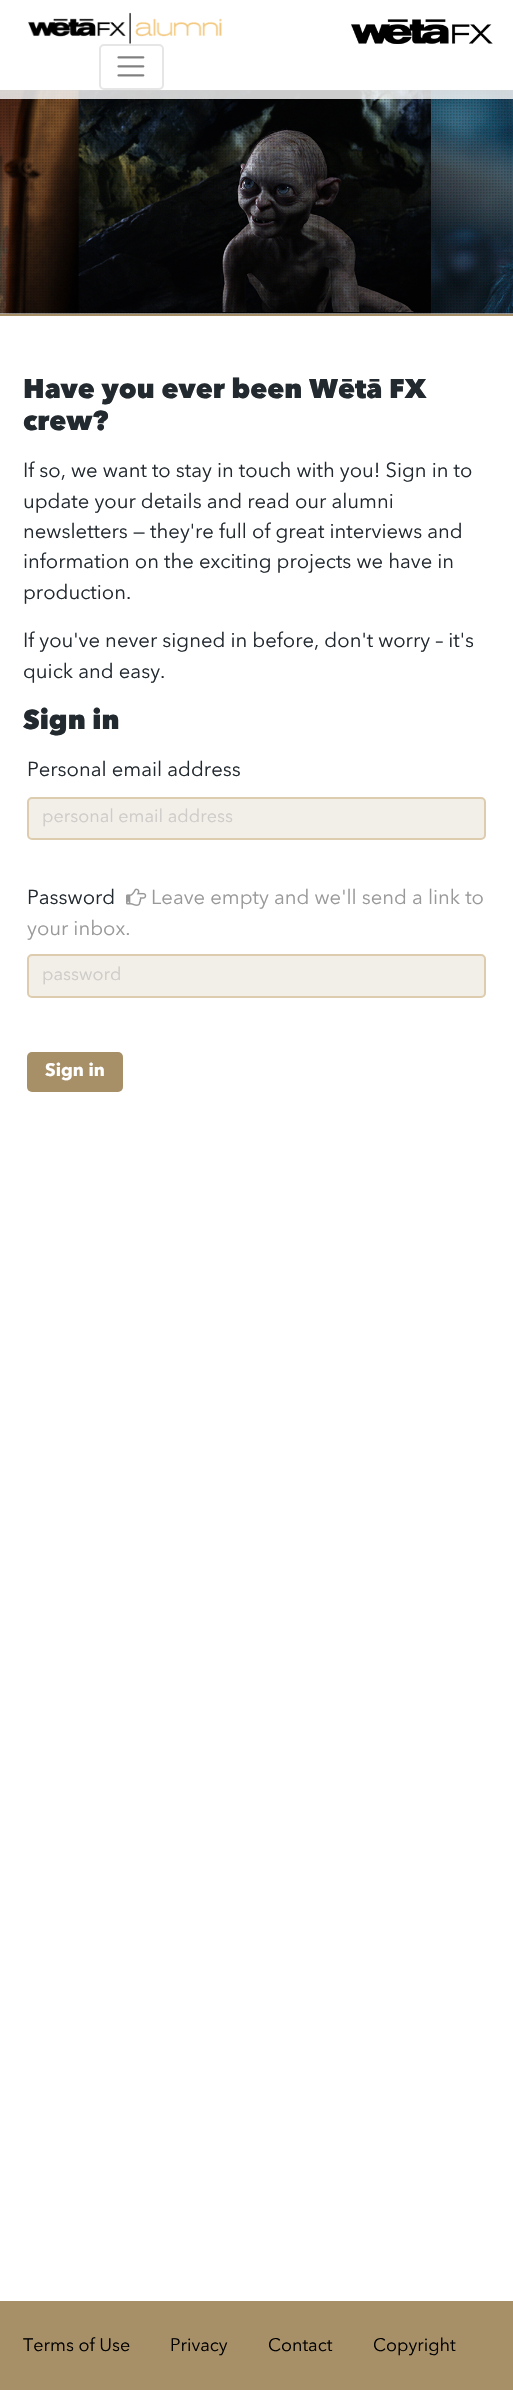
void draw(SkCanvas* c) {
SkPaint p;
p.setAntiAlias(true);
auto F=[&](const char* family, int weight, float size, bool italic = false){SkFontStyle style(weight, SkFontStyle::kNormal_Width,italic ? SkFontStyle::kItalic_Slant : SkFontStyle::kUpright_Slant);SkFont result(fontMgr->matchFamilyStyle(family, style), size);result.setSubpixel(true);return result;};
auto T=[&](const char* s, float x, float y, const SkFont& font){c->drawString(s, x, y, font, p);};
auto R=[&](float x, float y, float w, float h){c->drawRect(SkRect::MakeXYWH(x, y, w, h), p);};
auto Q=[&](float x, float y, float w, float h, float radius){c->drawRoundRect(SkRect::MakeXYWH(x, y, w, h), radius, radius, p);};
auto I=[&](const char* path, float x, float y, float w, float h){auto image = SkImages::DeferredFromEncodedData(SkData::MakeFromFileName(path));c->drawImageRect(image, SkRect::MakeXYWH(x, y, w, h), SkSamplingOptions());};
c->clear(0xffffffff);
I("4.png",0,90,513,224);
I("5.png",0,90,512,224);
p.setColor(0xccffffff);
R(0,90,513,9);
I("1.png",28,12,194,32);
I("2.png",351,19,142,25);
p.setStroke(true);
p.setStrokeWidth(2);
p.setColor(0xffe6e6e6);
c->drawRoundRect(SkRect::MakeXYWH(100,45,63,44),4,4,p);
I("3.png",117,56,28,21);
p.setStroke(false);
p.setColor(0xffa78f68);
R(0,314,513,2);
auto f1 = F("Avenir Next",400,27);
p.setColor(0xff22292f);
T("Have you ever been Wētā FX",23,398,f1);
T("crew?",23,430,f1);
auto f2 = F("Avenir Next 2",400,20.25);
T("If so, we want to stay in touch with you! Sign in to",23,477,f2);
T("update your details and read our alumni",23,508,f2);
T("newsletters — they're full of great interviews and",23,538,f2);
T("information on the exciting projects we have in",23,568,f2);
T("production.",23,599,f2);
T("If you've never signed in before, don't worry – it's",23,647,f2);
T("quick and easy.",23,678,f2);
T("Sign in",23,729,f1);
T("Personal email address",27,776,f2);
p.setColor(0xfff2eee8);
c->drawRoundRect(SkRect::MakeXYWH(28,798,457,41),4,4,p);
p.setStroke(true);
p.setColor(0xffdeccaf);
c->drawRoundRect(SkRect::MakeXYWH(28,798,457,41),4,4,p);
auto f3 = F("Avenir Next 2",400,18);
p.setStroke(false);
p.setColor(0xffceccc9);
T("personal email address",42,822,f3);
I("6.png",126,888,21,18);
p.setColor(0xff999999);
T("Leave empty and we'll send a link to",151,904,f2);
T("your inbox.",27,935,f2);
p.setColor(0xff22292f);
T("Password",27,904,f2);
p.setColor(0xfff2eee8);
c->drawRoundRect(SkRect::MakeXYWH(28,955,457,42),4,4,p);
p.setStroke(true);
p.setColor(0xffdeccaf);
c->drawRoundRect(SkRect::MakeXYWH(28,955,457,42),4,4,p);
p.setStroke(false);
p.setColor(0xffceccc9);
T("password",42,980,f3);
p.setColor(0xffa78f68);
Q(27,1052,96,40,5);
auto f4 = F("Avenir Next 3",400,18);
p.setColor(0xffffffff);
T("Sign in",45,1076,f4);
p.setColor(0xffa78f68);
R(0,2301,513,89);
p.setColor(0xff000000);
T("Terms of Use",23,2351,f3);
T("Privacy",170,2351,f3);
T("Contact",268,2351,f3);
T("Copyright",373,2351,f3);
}
